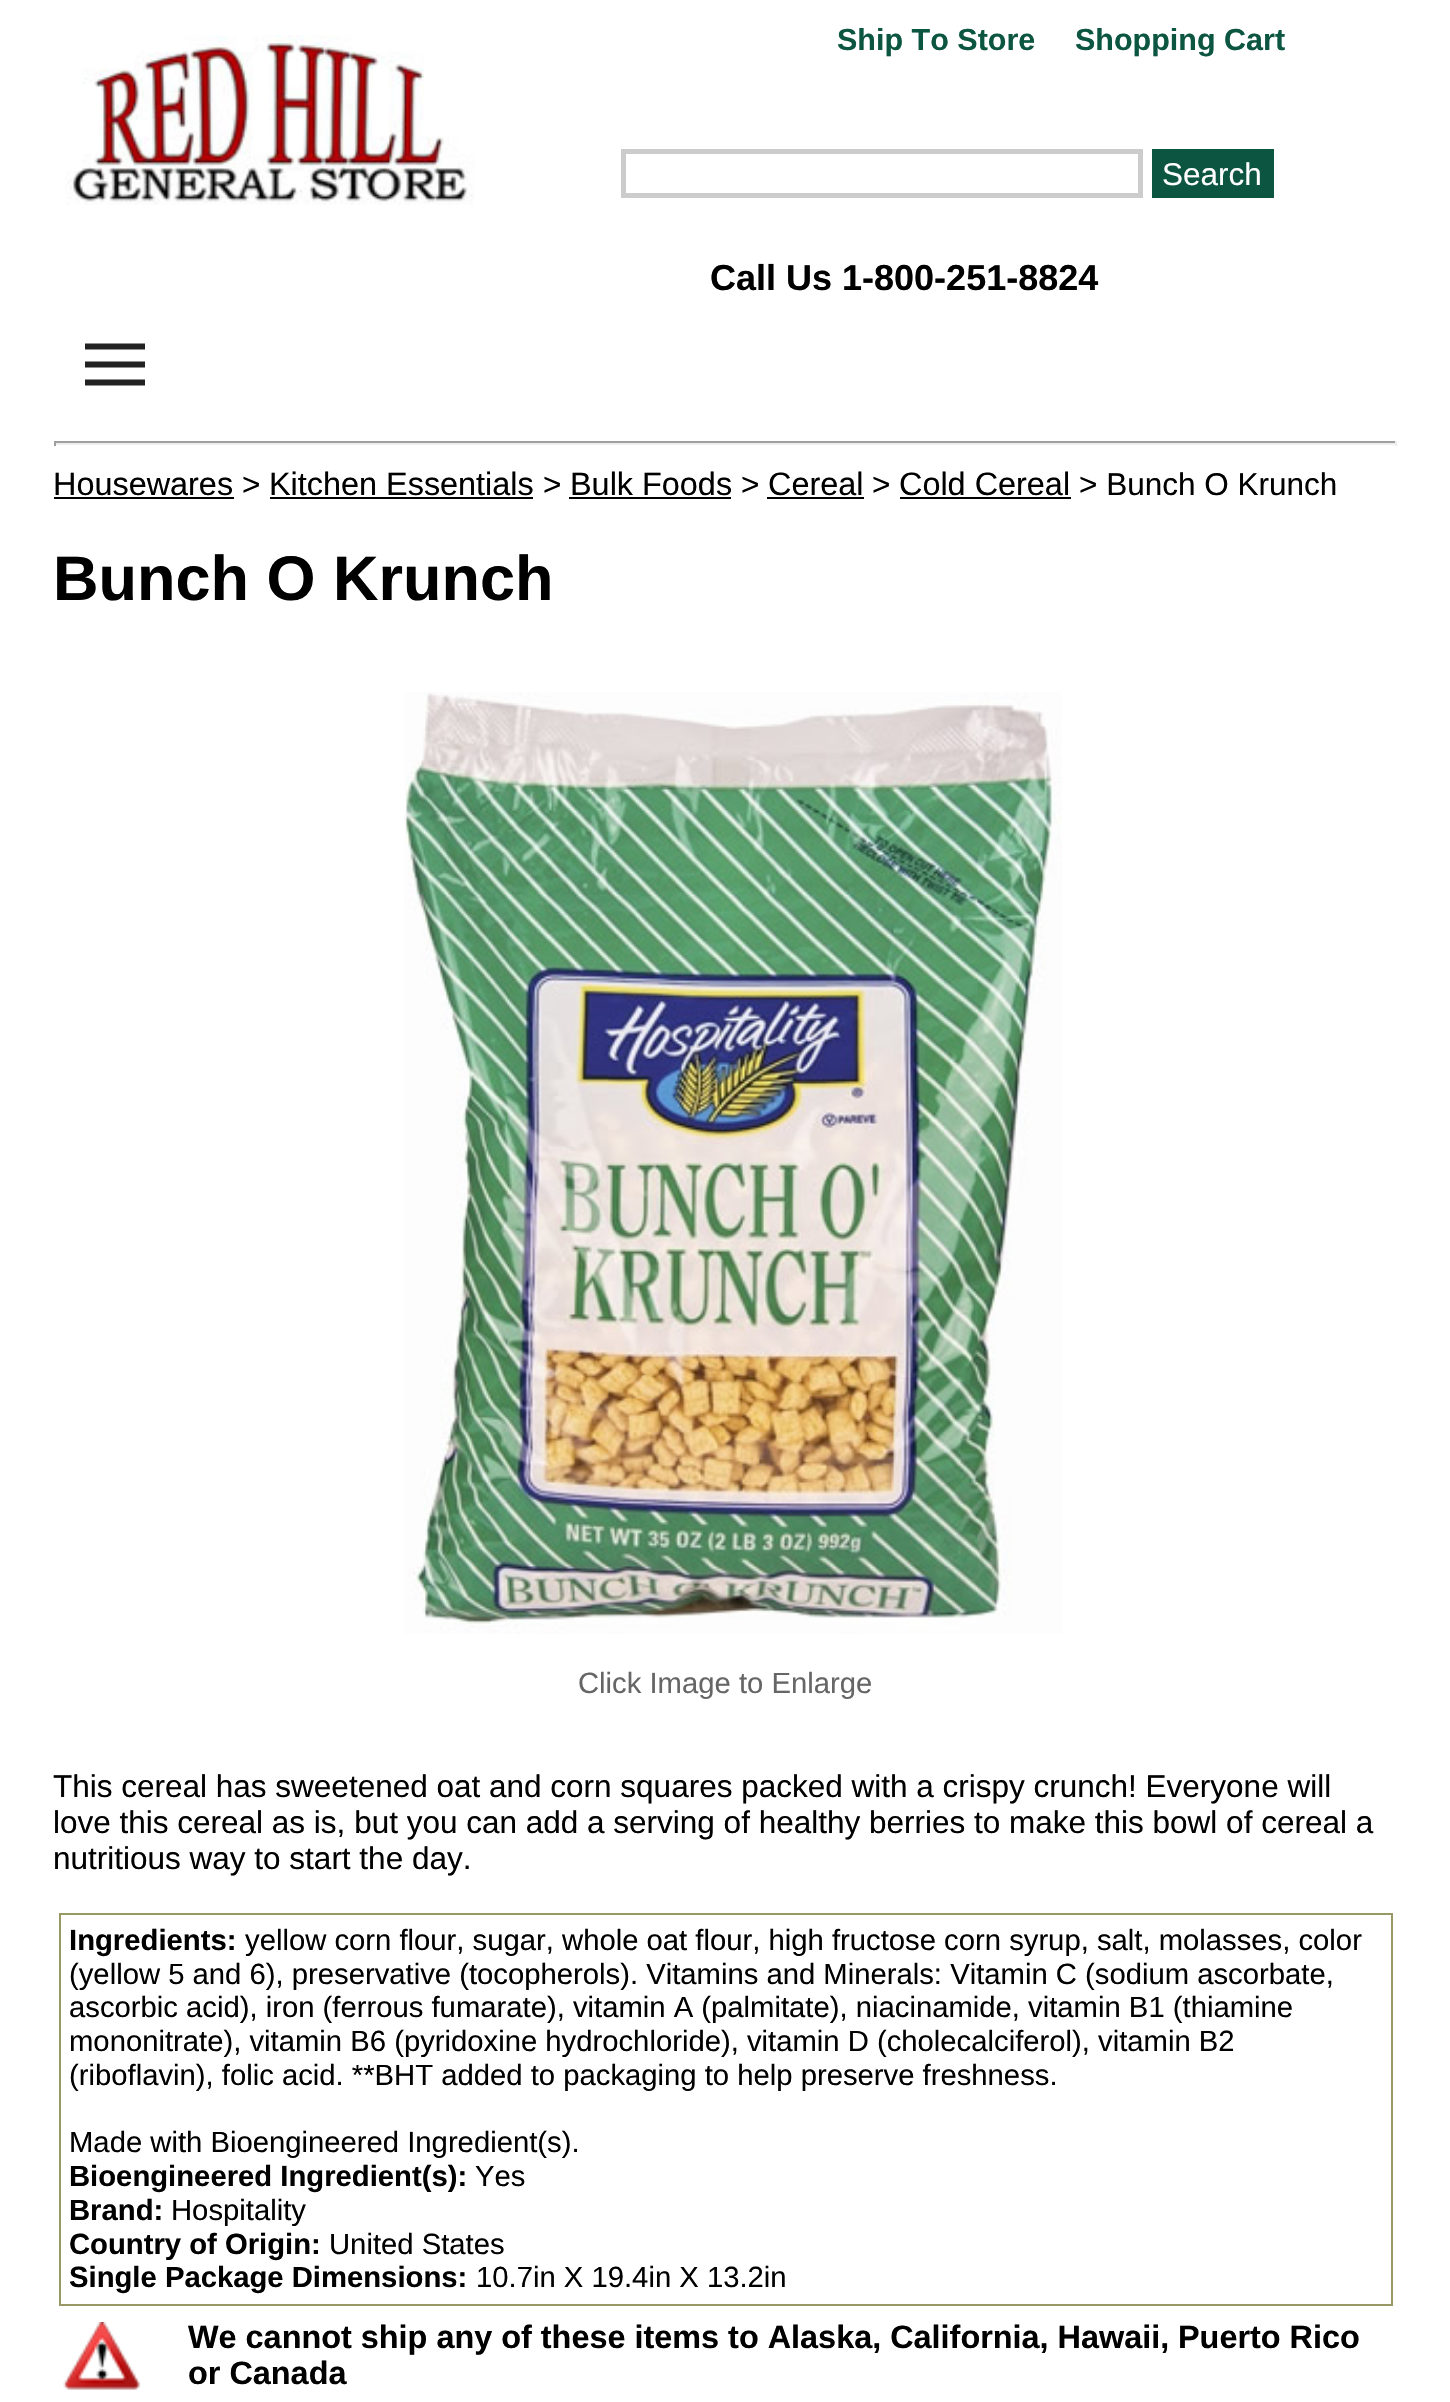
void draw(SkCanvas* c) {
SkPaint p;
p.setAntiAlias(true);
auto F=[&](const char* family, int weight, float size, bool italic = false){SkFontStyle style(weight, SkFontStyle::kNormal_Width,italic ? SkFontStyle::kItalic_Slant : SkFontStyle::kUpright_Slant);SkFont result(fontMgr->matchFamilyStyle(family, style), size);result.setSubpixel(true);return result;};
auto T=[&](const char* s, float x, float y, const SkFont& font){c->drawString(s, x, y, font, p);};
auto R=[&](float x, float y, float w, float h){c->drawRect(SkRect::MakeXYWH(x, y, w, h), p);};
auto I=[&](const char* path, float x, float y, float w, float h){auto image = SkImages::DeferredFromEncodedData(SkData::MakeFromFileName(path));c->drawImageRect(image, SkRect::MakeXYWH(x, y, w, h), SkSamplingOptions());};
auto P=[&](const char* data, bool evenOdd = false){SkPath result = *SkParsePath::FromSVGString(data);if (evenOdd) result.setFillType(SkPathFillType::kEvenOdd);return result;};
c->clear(0xffffffff);
auto f1 = F("Liberation Sans",700,30.5);
p.setColor(0xff0c5641);
T("Ship To Store",837,50,f1);
T("Shopping Cart",1075,50,f1);
I("1.png",65,35,410,170);
p.setStroke(true);
p.setStrokeWidth(5);
p.setColor(0xffcccccc);
c->drawRect(SkRect::MakeXYWH(623.5,151.5,517,44),p);
p.setStroke(false);
p.setColor(0xff0c5641);
R(1152,149,122,49);
auto f2 = F("Liberation Sans",400,31.5);
p.setColor(0xffffffff);
T("Search",1162,185,f2);
auto f3 = F("Liberation Sans",700,36);
p.setColor(0xff000000);
T("Call Us 1-800-251-8824",710,290,f3);
p.setStroke(true);
p.setStrokeWidth(6);
p.setColor(0xff222222);
c->drawPath(P("M85 382.5h60m-60-36h60m-60 18h60"),p);
p.setStroke(false);
p.setColor(0xff9f9f9f);
R(54,441,1343,2);
p.setColor(0xffeeeeee);
R(1395,441,2,5);
R(54,443,1343,2);
p.setColor(0xff9f9f9f);
R(54,441,2,5);
auto f4 = F("Liberation Sans",400,32.4);
p.setColor(0xff000000);
T("Housewares",53,495,f4);
R(54,497,180,2);
T(">",242,495,f2);
T("Kitchen Essentials",269,495,f4);
R(270,497,263,2);
T(">",543,495,f2);
T("Bulk Foods",570,495,f4);
R(569,497,162,2);
T(">",741,495,f2);
T("Cereal",768,495,f4);
R(767,497,97,2);
T(">",872,495,f2);
T("Cold Cereal",899,495,f4);
R(900,497,171,2);
T("> Bunch O Krunch",1079,495,f2);
auto f5 = F("Liberation Sans",700,63);
T("Bunch O Krunch",53,600,f5);
I("2.png",404,692,658,942);
auto f6 = F("Liberation Sans",400,29.25);
p.setColor(0xff666666);
T("Click Image to Enlarge",578,1693,f6);
p.setColor(0xff000000);
T("This cereal has sweetened oat and corn squares packed with a crispy crunch! Everyone will",53,1797,f2);
T("love this cereal as is, but you can add a serving of healthy berries to make this bowl of cereal a",53,1833,f2);
T("nutritious way to start the day.",53,1869,f2);
p.setStroke(true);
p.setStrokeWidth(2);
p.setColor(0xff999966);
c->drawRect(SkRect::MakeXYWH(60,1914,1332,391),p);
auto f7 = F("Liberation Sans",700,29.25);
p.setStroke(false);
p.setColor(0xff000000);
T("Ingredients:",69,1950,f7);
T("yellow corn flour, sugar, whole oat flour, high fructose corn syrup, salt, molasses, color",245,1950,f6);
T("(yellow 5 and 6), preservative (tocopherols). Vitamins and Minerals: Vitamin C (sodium ascorbate,",69,1984,f6);
T("ascorbic acid), iron (ferrous fumarate), vitamin A (palmitate), niacinamide, vitamin B1 (thiamine",69,2017,f6);
T("mononitrate), vitamin B6 (pyridoxine hydrochloride), vitamin D (cholecalciferol), vitamin B2",69,2051,f6);
T("(riboflavin), folic acid. **BHT added to packaging to help preserve freshness.",69,2085,f6);
T("Made with Bioengineered Ingredient(s).",69,2152,f6);
T("Bioengineered Ingredient(s):",69,2186,f7);
T("Yes",475,2186,f6);
T("Brand:",69,2220,f7);
T("Hospitality",171,2220,f6);
T("Country of Origin:",69,2254,f7);
T("United States",329,2254,f6);
T("Single Package Dimensions:",69,2287,f7);
T("10.7in X 19.4in X 13.2in",476,2287,f6);
I("3.png",63,2322,78,68);
auto f8 = F("Liberation Sans",700,32.4);
T("We cannot ship any of these items to Alaska, California, Hawaii,",188,2348,f8);
T("Puerto Rico",1178,2348,f8);
T("or Canada",188,2384,f8);
}
